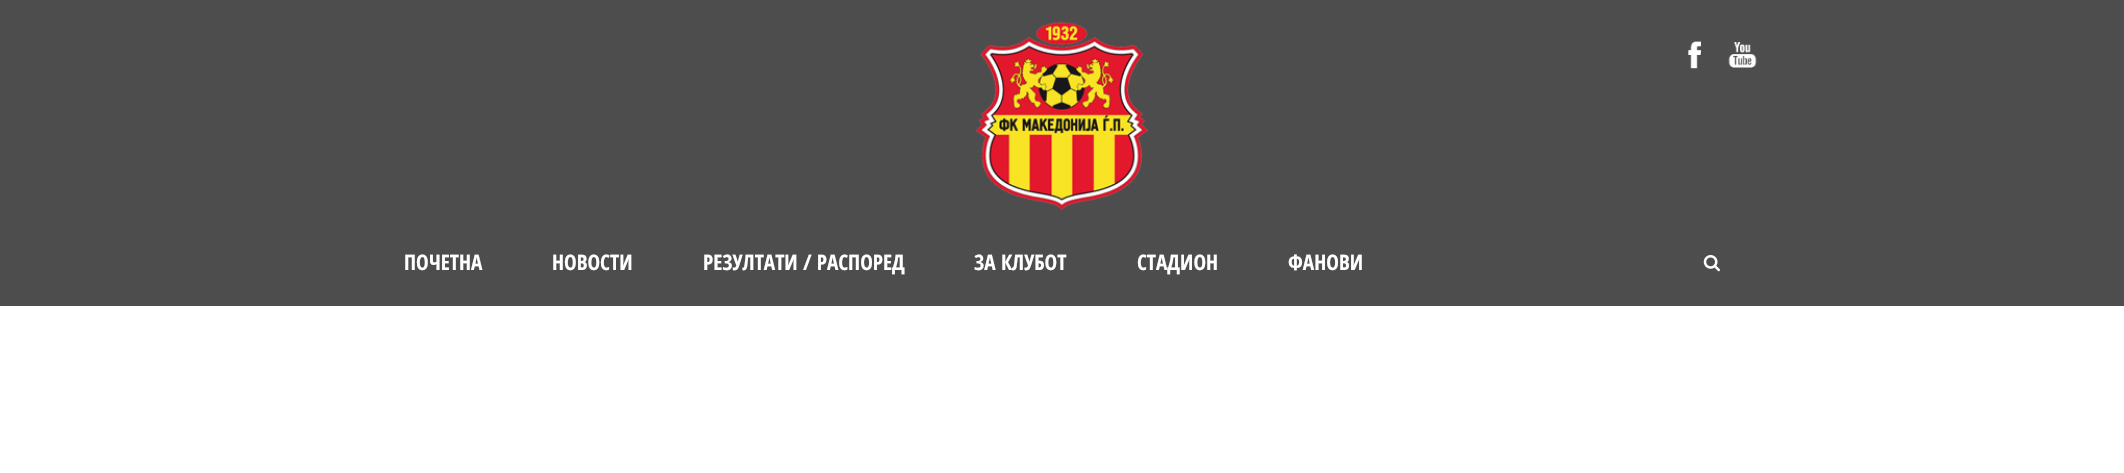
void draw(SkCanvas* c) {
SkPaint p;
p.setAntiAlias(true);
auto F=[&](const char* family, int weight, float size, bool italic = false){SkFontStyle style(weight, SkFontStyle::kNormal_Width,italic ? SkFontStyle::kItalic_Slant : SkFontStyle::kUpright_Slant);SkFont result(fontMgr->matchFamilyStyle(family, style), size);result.setSubpixel(true);return result;};
auto T=[&](const char* s, float x, float y, const SkFont& font){c->drawString(s, x, y, font, p);};
auto R=[&](float x, float y, float w, float h){c->drawRect(SkRect::MakeXYWH(x, y, w, h), p);};
auto I=[&](const char* path, float x, float y, float w, float h){auto image = SkImages::DeferredFromEncodedData(SkData::MakeFromFileName(path));c->drawImageRect(image, SkRect::MakeXYWH(x, y, w, h), SkSamplingOptions());};
c->clear(0xffffffff);
p.setColor(0xff4d4d4d);
R(0,0,2124,306);
I("1.png",1688,41,13,28);
I("2.png",1728,42,29,26);
I("3.png",976,22,172,188);
auto f1 = F("Open Sans Condensed",700,21.25);
p.setColor(0xffffffff);
T("ПОЧЕТНА",404,270,f1);
T("НОВОСТИ",552,270,f1);
T("РЕЗУЛТАТИ / РАСПОРЕД",703,270,f1);
T("ЗА КЛУБОТ",974,270,f1);
T("СТАДИОН",1137,270,f1);
T("ФАНОВИ",1288,270,f1);
I("4.png",1703,255,17,17);
}
